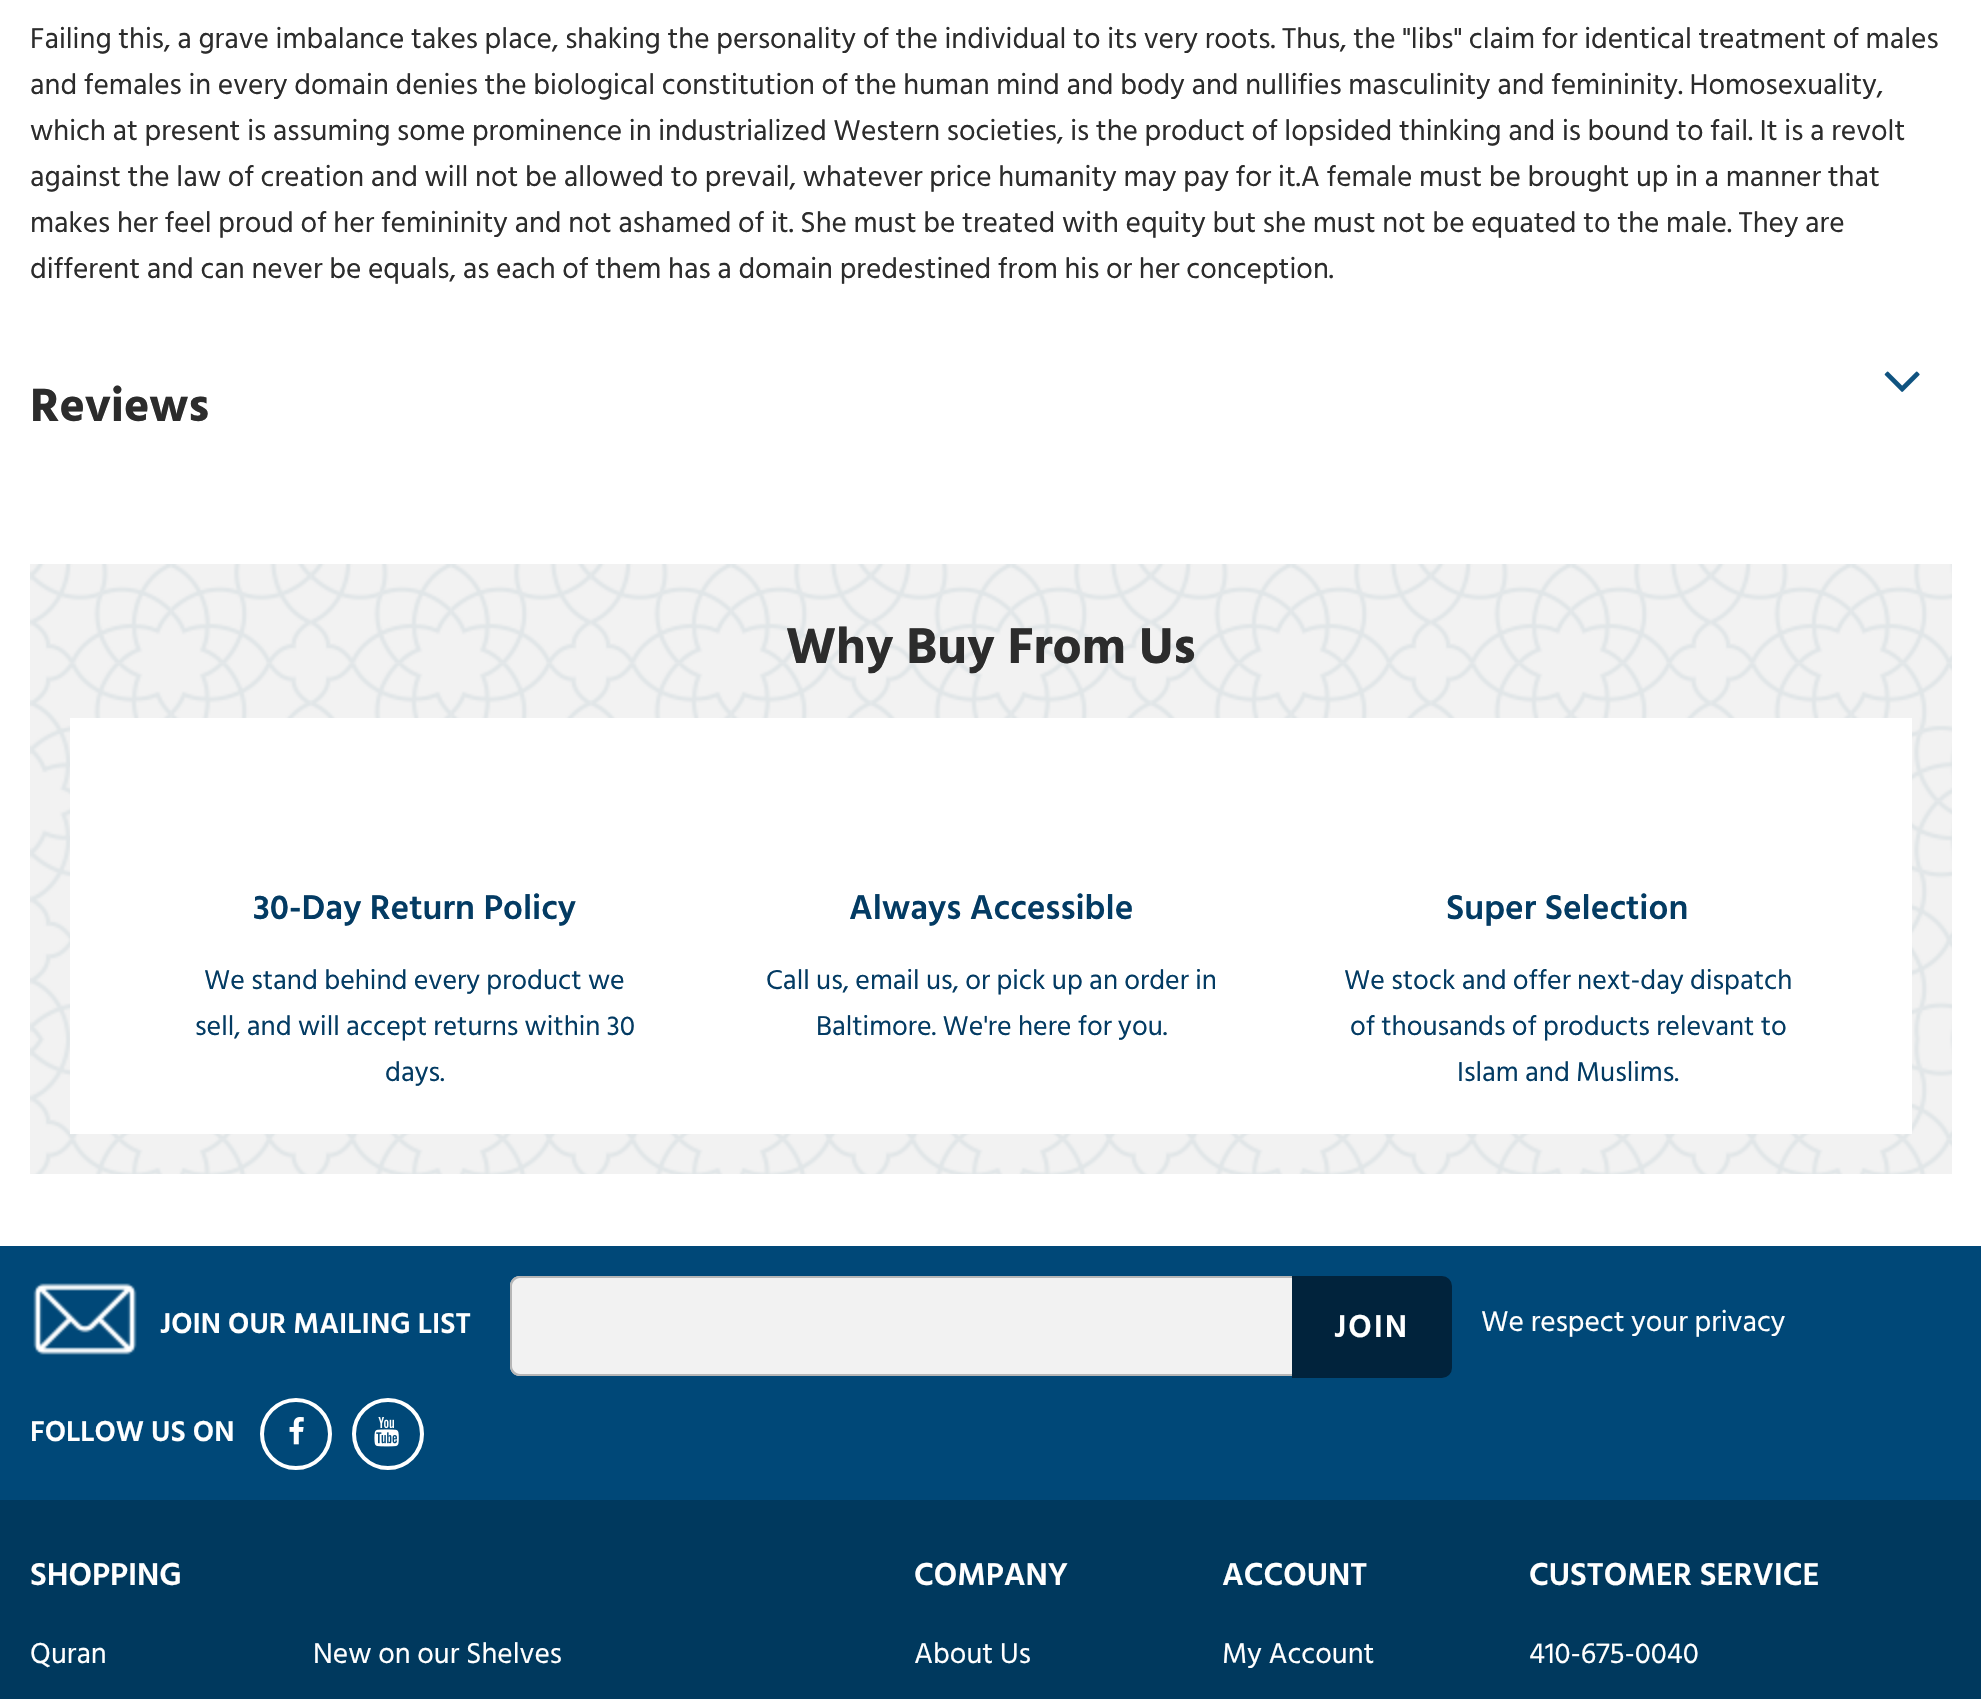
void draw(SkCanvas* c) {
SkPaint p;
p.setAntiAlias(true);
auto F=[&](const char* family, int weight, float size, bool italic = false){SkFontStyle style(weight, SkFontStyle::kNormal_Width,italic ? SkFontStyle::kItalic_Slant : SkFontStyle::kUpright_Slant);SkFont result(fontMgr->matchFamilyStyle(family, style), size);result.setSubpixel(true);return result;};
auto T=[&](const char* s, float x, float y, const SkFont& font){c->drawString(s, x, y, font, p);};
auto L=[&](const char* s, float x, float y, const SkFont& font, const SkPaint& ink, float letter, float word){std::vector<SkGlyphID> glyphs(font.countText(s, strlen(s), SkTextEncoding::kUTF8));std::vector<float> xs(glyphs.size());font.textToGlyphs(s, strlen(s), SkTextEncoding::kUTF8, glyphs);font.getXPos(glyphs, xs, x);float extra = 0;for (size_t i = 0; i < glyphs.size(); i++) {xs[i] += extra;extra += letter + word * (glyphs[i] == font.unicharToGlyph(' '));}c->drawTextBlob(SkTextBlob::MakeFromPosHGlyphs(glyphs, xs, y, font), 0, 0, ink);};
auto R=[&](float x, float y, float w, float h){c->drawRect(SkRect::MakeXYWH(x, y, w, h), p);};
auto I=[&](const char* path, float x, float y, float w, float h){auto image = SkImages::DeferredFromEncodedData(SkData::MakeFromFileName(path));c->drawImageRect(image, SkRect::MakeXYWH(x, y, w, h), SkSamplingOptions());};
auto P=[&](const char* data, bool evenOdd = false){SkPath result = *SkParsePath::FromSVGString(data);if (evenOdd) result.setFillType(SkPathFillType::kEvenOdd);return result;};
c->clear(0xff00395e);
p.setColor(0xffffffff);
R(0,0,1981,1246);
auto f1 = F("Hind Siliguri",400,29.45);
p.setColor(0xff2c2c2c);
T("Failing this, a grave imbalance takes place, shaking the personality of the individual to its very roots. Thus, the \"libs\" claim for identical treatment of males",30,48,f1);
T("and females in every domain denies the biological constitution of the human mind and body and nullifies masculinity and femininity. Homosexuality,",30,94,f1);
T("which at present is assuming some prominence in industrialized Western societies, is the product of lopsided thinking and is bound to fail. It is a revolt",30,140,f1);
T("against the law of creation and will not be allowed to prevail, whatever price humanity may pay for it.A female must be brought up in a manner that",30,186,f1);
T("makes her feel proud of her femininity and not ashamed of it. She must be treated with equity but she must not be equated to the male. They are",30,232,f1);
T("different and can never be equals, as each of them has a domain predestined from his or her conception.",30,278,f1);
I("1.png",1884,371,36,21);
auto f2 = F("Hind Siliguri",700,48);
T("Reviews",30,421,f2);
I("2.png",30,564,1922,610);
auto f3 = F("Hind Siliguri",700,51.5);
T("Why Buy From Us",786,663,f3);
p.setColor(0xffffffff);
R(70,718,1842,416);
auto f4 = F("Hind Siliguri",600,35.25);
p.setColor(0xff033b63);
T("30-Day Return Policy",253,919,f4);
auto f5 = F("Hind Siliguri",400,28);
T("We stand behind every product we",204,989,f5);
T("sell, and will accept returns within 30",195,1035,f5);
T("days.",385,1081,f5);
T("Always Accessible",849,919,f4);
T("Call us, email us, or pick up an order in",766,989,f5);
T("Baltimore. We're here for you.",816,1035,f5);
T("Super Selection",1446,919,f4);
T("We stock and offer next-day dispatch",1344,989,f5);
T("of thousands of products relevant to",1350,1035,f5);
T("Islam and Muslims.",1457,1081,f5);
p.setColor(0xff004878);
R(0,1246,1981,254);
I("3.png",33,1283,104,72);
auto f6 = F("Hind Siliguri",600,29.45);
p.setColor(0xffffffff);
T("JOIN OUR MAILING LIST",160,1333,f6);
p.setColor(0xfff2f2f2);
c->drawPath(P("M520 1276h772v100h-772c-5.5 0-10-4.5-10-10v-80c0-5.5 4.5-10 10-10z"),p);
p.setColor(0xffb6b6b6);
c->drawPath(P("M520 1276h772v100h-772c-6 0-10-4-10-10v-80c0-6 4-10 10-10zm0 2h772v96h-772c-4 0-8-4-8-8v-80c0-4 4-8 8-8z",true),p);
p.setColor(0xff01233c);
c->drawPath(P("M1293 1277h149c5 0 9 4 9 9v82c0 5-4 9-9 9h-149z"),p);
p.setStroke(true);
p.setStrokeWidth(2);
c->drawPath(P("M1293 1277h149c5 0 9 4 9 9v82c0 5-4 9-9 9h-149z"),p);
auto f7 = F("Hind Siliguri",600,32.4);
p.setStroke(false);
p.setColor(0xffffffff);
L("JOIN",1334,1337,f7,p,2,0);
T("We respect your privacy",1481,1331,f1);
T("FOLLOW US ON",30,1441,f6);
p.setStroke(true);
p.setStrokeWidth(4);
c->drawCircle(296,1434,34,p);
I("4.png",289,1417,15,28);
c->drawCircle(388,1434,34,p);
I("5.png",374,1417,25,30);
p.setStroke(false);
T("SHOPPING",30,1585,f7);
T("Quran",30,1663,f1);
T("New on our Shelves",313,1663,f1);
T("COMPANY",914,1585,f7);
T("About Us",914,1663,f1);
T("ACCOUNT",1222,1585,f7);
T("My Account",1222,1663,f1);
T("CUSTOMER SERVICE",1529,1585,f7);
T("410-675-0040",1529,1663,f1);
}
